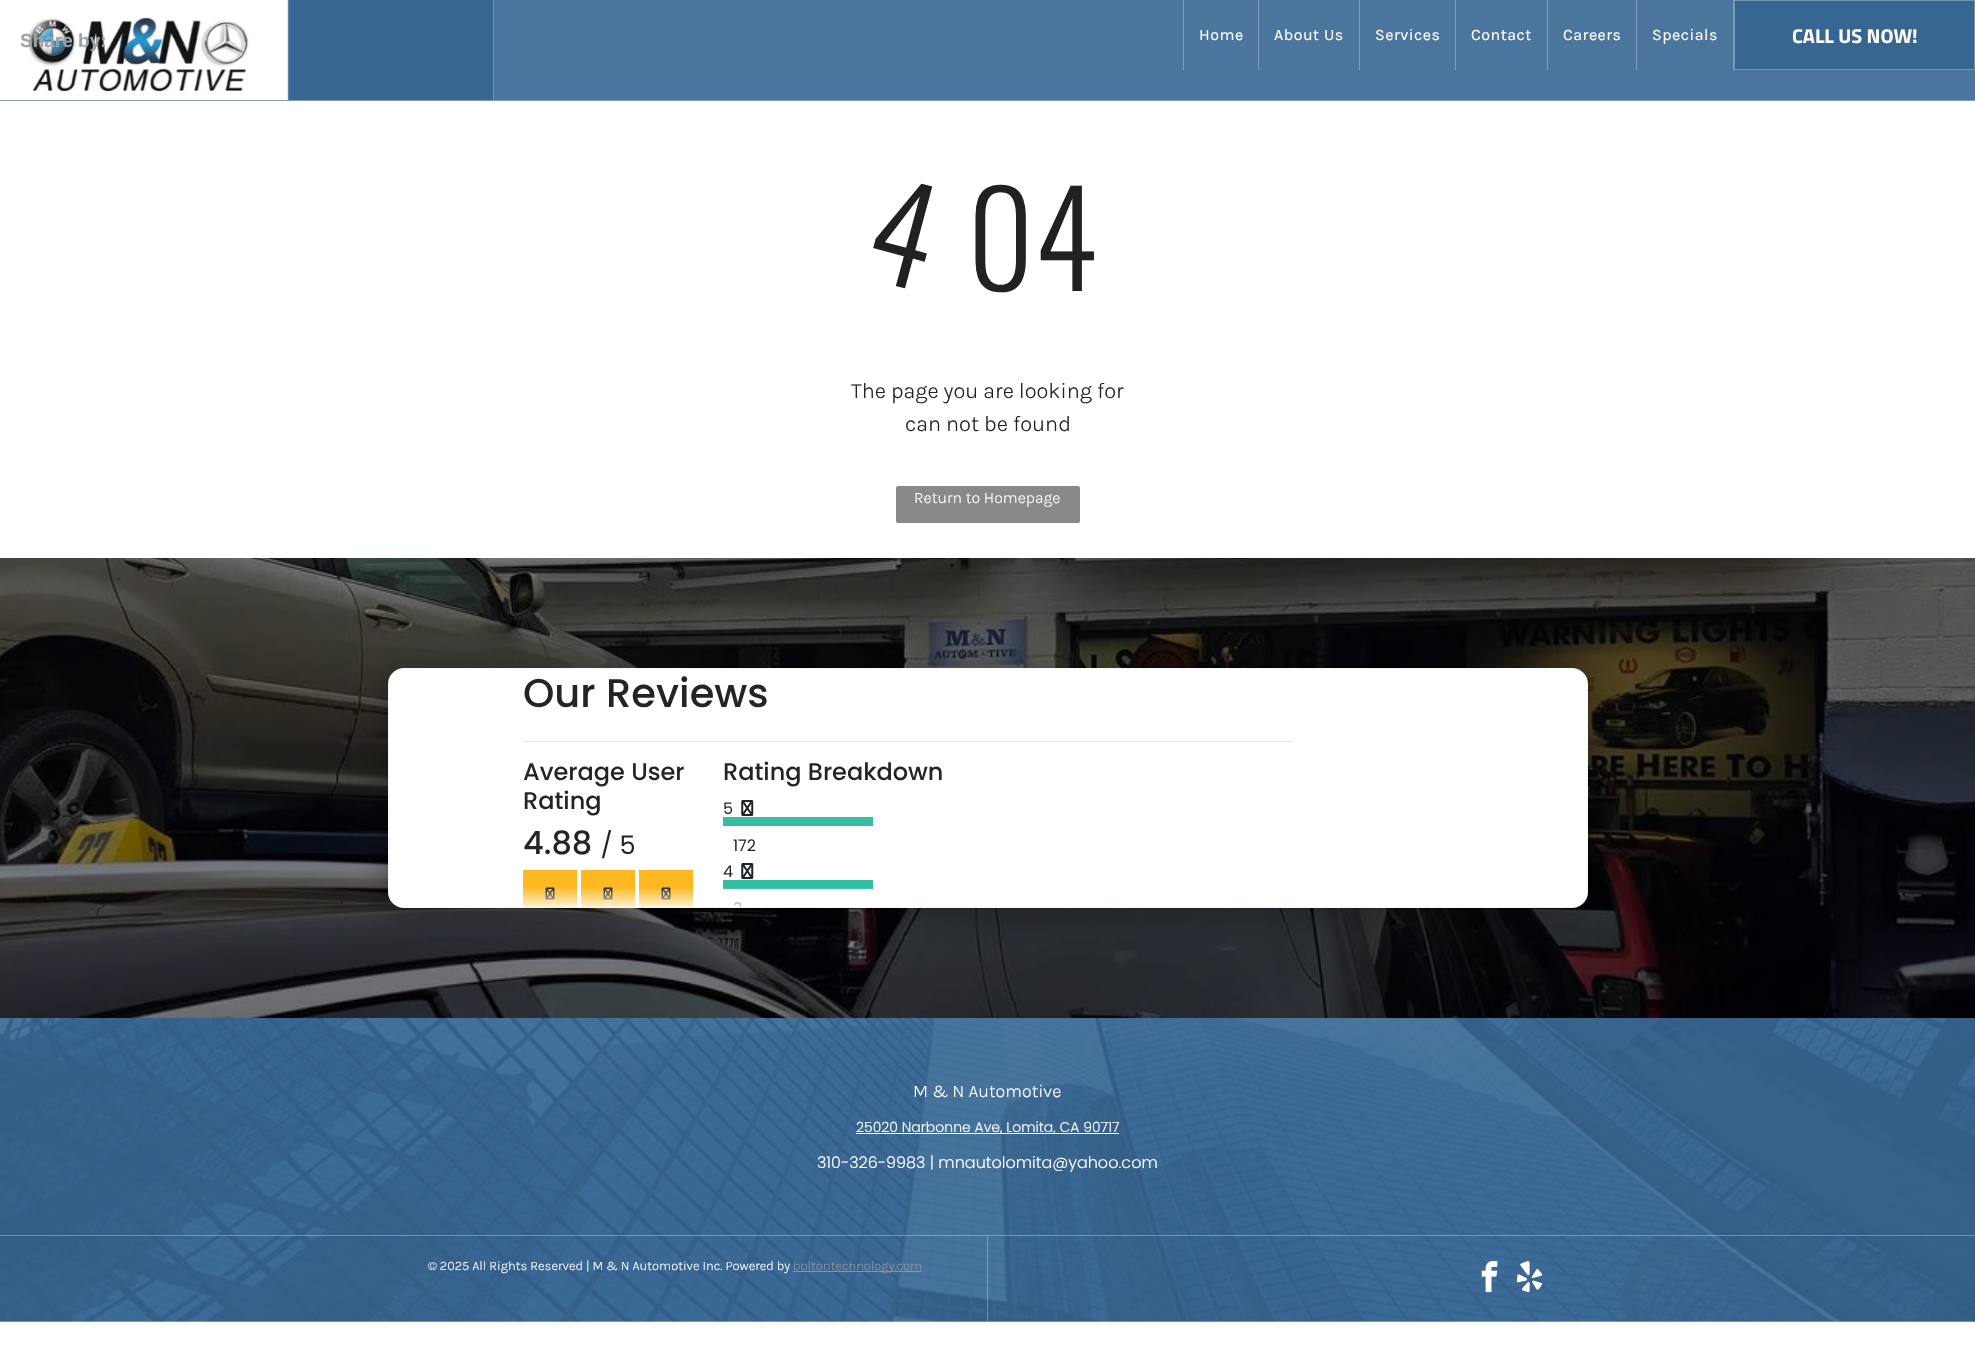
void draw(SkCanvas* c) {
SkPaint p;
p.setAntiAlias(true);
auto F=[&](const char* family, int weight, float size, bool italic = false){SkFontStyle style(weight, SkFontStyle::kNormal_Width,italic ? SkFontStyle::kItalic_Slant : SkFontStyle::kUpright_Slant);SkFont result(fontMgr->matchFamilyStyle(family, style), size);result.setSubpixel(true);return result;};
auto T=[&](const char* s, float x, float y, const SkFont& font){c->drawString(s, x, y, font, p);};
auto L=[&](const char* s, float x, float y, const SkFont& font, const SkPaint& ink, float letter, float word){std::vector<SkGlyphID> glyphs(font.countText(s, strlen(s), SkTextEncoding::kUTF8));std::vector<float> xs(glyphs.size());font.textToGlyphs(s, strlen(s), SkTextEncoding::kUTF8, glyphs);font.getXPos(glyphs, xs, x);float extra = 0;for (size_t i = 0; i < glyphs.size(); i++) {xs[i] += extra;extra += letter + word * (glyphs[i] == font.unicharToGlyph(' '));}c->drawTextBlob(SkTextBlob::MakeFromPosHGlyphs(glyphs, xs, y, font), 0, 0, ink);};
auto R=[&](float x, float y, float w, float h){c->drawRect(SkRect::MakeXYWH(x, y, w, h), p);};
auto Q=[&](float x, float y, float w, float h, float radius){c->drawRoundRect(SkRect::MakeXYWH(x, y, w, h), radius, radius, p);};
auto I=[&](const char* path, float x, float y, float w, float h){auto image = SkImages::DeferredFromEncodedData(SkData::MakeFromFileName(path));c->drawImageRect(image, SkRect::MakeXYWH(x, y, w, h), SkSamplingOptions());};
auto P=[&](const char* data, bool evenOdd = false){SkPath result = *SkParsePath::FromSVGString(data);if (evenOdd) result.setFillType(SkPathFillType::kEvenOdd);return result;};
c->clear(0xffffffff);
p.setColor(0xff376692);
R(287,0,206,100);
I("1.png",0,0,289,100);
auto f1 = F("Liberation Sans",700,19);
p.setColor(0xff99a4aa);
T("Share by:",20,47,f1);
p.setColor(0xff4b759d);
R(494,0,1481,100);
p.setColor(0xff819eba);
R(0,100,1975,1);
p.setColor(0xff7394b3);
R(493,0,1,100);
p.setColor(0xff819eba);
R(1183,0,1,70);
auto f2 = F("Karla",400,16);
p.setColor(0xffffffff);
L("Home",1199,40,f2,p,.5,0);
p.setColor(0xff819eba);
R(1258,0,1,70);
p.setColor(0xffffffff);
L("About Us",1274,40,f2,p,.5,0);
p.setColor(0xff819eba);
R(1359,0,1,70);
p.setColor(0xffffffff);
L("Services",1375,40,f2,p,.5,0);
p.setColor(0xff819eba);
R(1455,0,1,70);
p.setColor(0xffffffff);
L("Contact",1471,40,f2,p,.5,0);
p.setColor(0xff819eba);
R(1547,0,1,70);
p.setColor(0xffffffff);
L("Careers",1563,40,f2,p,.5,0);
p.setColor(0xff819eba);
R(1636,0,1,70);
p.setColor(0xffffffff);
L("Specials",1652,40,f2,p,.5,0);
p.setColor(0xff819eba);
R(1733,0,1,70);
p.setColor(0xff376692);
c->drawRect(SkRect::MakeXYWH(1734.5,.5,240,69),p);
p.setStroke(true);
p.setStrokeWidth(1);
p.setColor(0xff7394b3);
c->drawRect(SkRect::MakeXYWH(1734.5,.5,240,69),p);
auto f3 = F("Titillium Web",700,20);
p.setStroke(false);
p.setColor(0xffffffff);
T("CALL US NOW!",1792,43,f3);
auto f4 = F("Oswald",300,130);
p.setColor(0xff212121);
c->save();
c->rotate(15,859,276);
T("4",859,276,f4);
c->restore();
T("04",967,291,f4);
auto f5 = F("Karla",300,22);
T("The page you are looking for",851,398,f5);
T("can not be found",905,431,f5);
p.setColor(0xff898989);
Q(896,486,184,37,2);
auto f6 = F("Karla",300,16);
p.setColor(0xffffffff);
T("Return to Homepage",914,503,f6);
I("2.png",0,1018,1975,304);
I("3.png",0,558,1975,460);
p.setColor(0x4d000000);
p.setMaskFilter(SkMaskFilter::MakeBlur(kNormal_SkBlurStyle, 16));
c->drawRoundRect(SkRect::MakeXYWH(388,676,1200,240),16,16,p);
p.setMaskFilter(nullptr);
p.setColor(0xf2ffffff);
Q(388,668,1200,240,16);
p.setStroke(true);
p.setColor(0x33ffffff);
c->drawRoundRect(SkRect::MakeXYWH(388.5,668.5,1199,239),15.5,15.5,p);
I("4.png",389,669,1198,238);
p.setStroke(false);
{
const SkColor colors[] = {0x00ffffff,0xccffffff};
const float stops[] = {0,1};
const SkPoint ends[] = {{988,887}, {988,907}};
p.setShader(SkGradientShader::MakeLinear(ends, colors, stops, 2, SkTileMode::kClamp));
p.setAlpha(255);
}
c->drawPath(P("M389 887h1198v5c0 8.5-6.5 15-15 15h-1168c-8.5 0-15-6.5-15-15z"),p);
p.setShader(nullptr);
p.setColor(0x4dffffff);
R(0,1235,1975,1);
auto f7 = F("Karla",300,18);
p.setColor(0xffffffff);
T("M & N Automotive",913,1097,f7);
R(856,1133,263,1);
auto f8 = F("Poppins",300,14);
T("25020 Narbonne Ave, Lomita, CA 90717",856,1132,f8);
auto f9 = F("Poppins",300,16);
T("310-326-9983 | mnautolomita@yahoo.com",817,1168,f9);
p.setColor(0x4dffffff);
R(0,1321,1975,1);
R(987,1236,1,85);
auto f10 = F("Karla",300,13);
p.setColor(0xffffffff);
T("© 2025 All Rights Reserved | M & N Automotive Inc. Powered by",428,1270,f10);
p.setColor(0xff939393);
R(793,1271,129,1);
T("boltontechnology.com",793,1270,f10);
I("5.png",1481,1261,17,32);
I("6.png",1516,1261,27,32);
}
